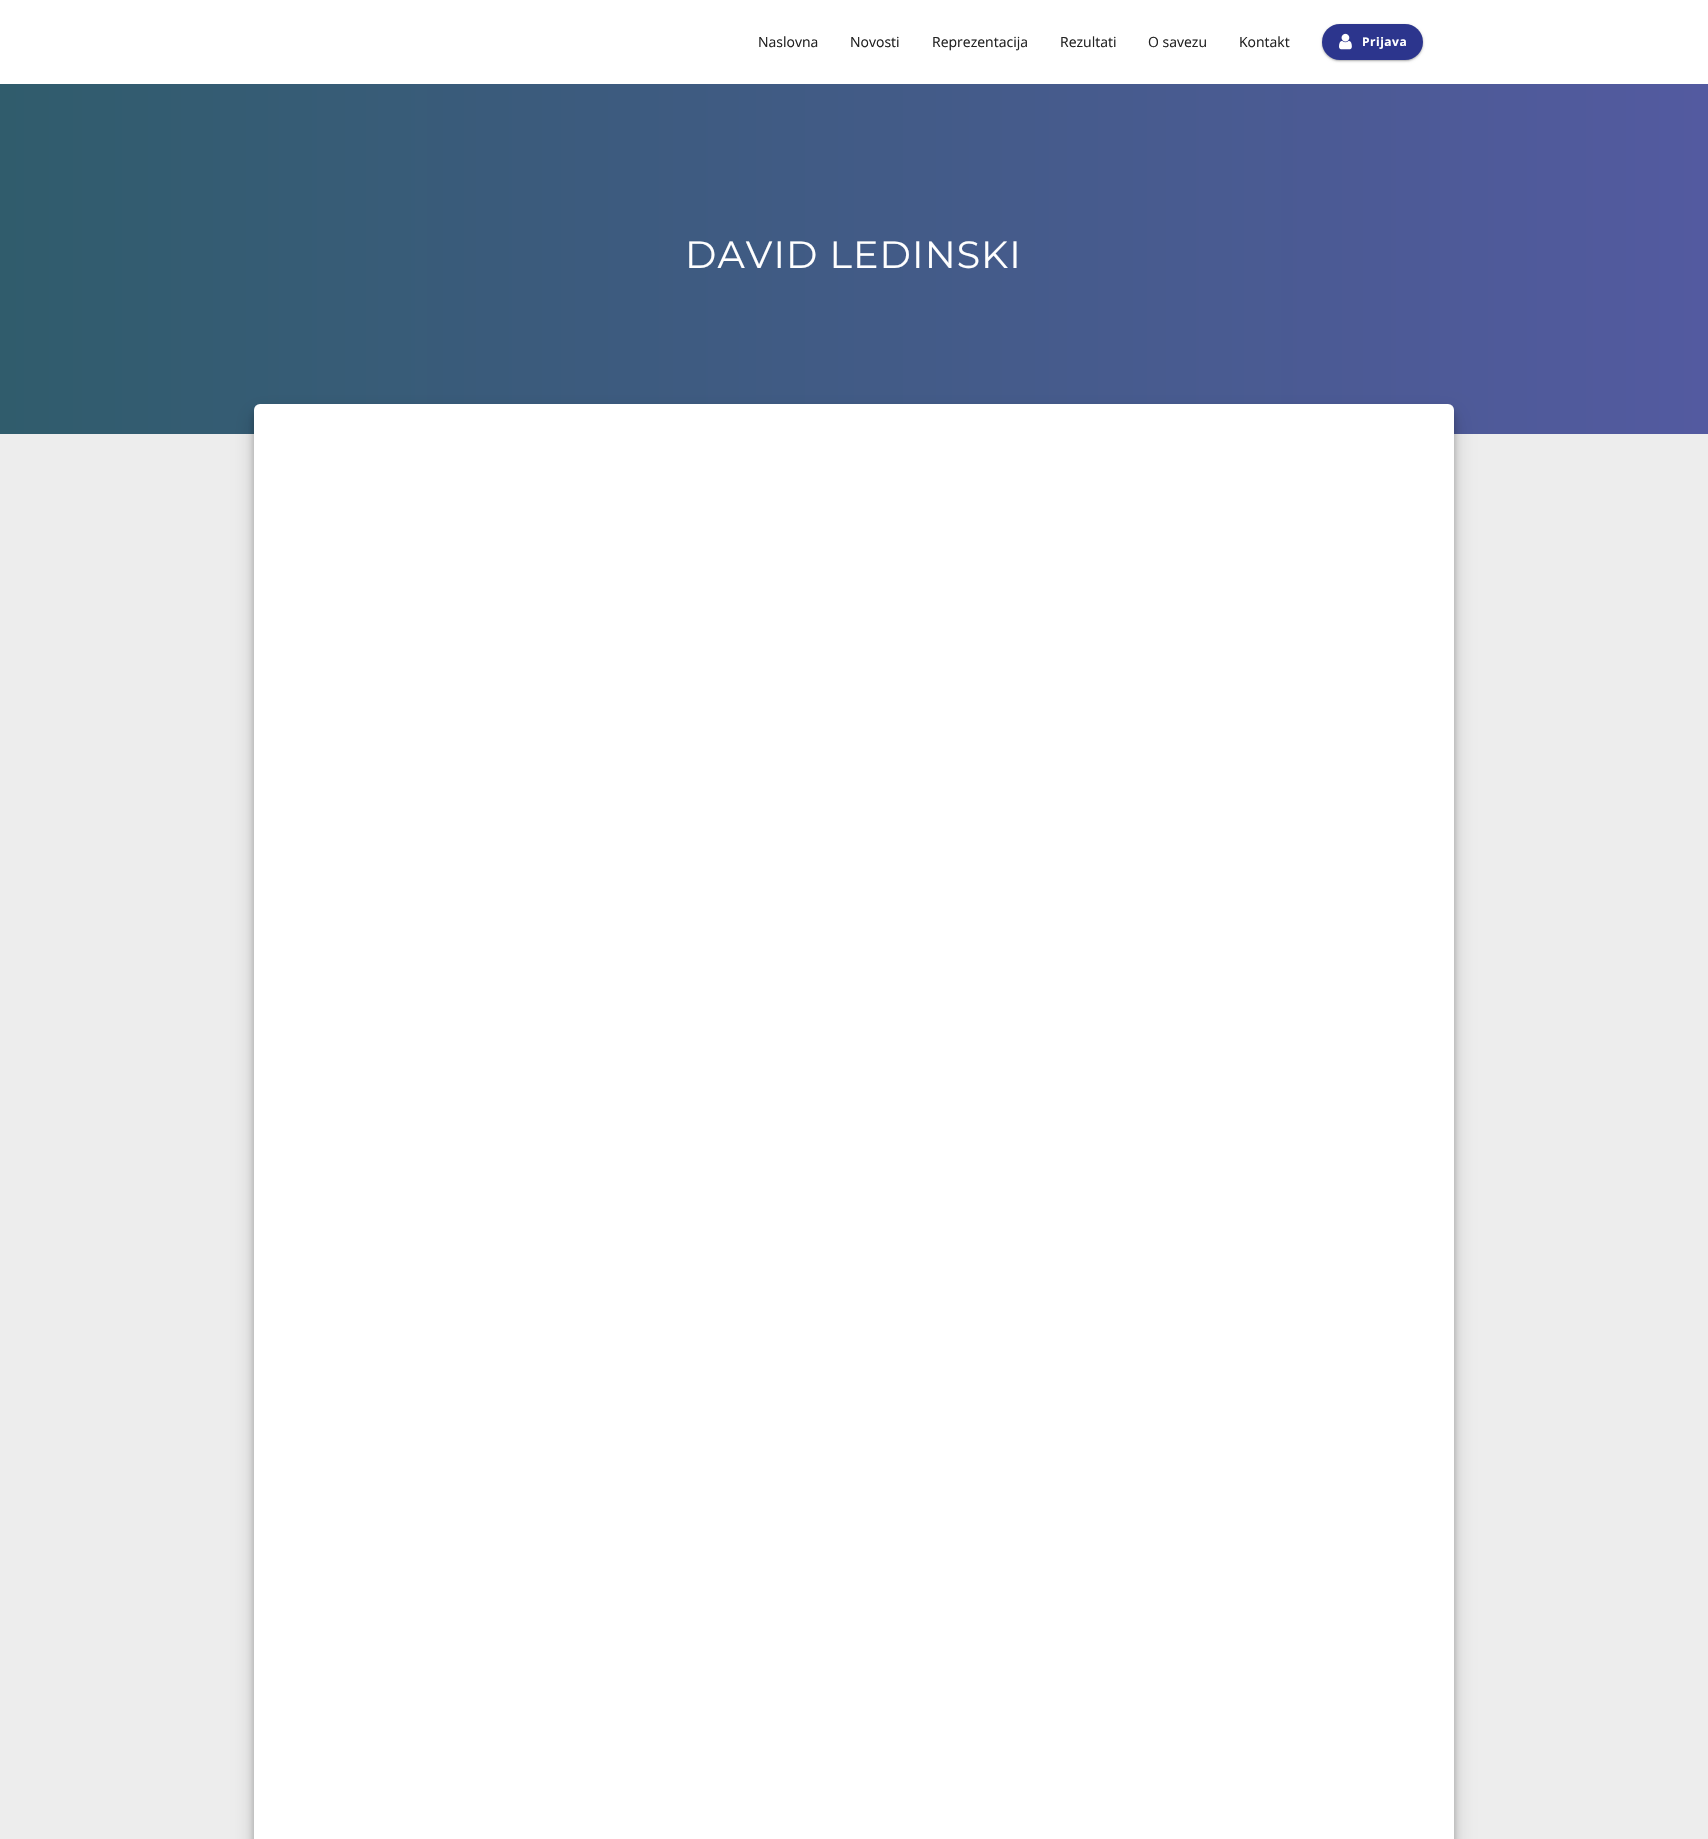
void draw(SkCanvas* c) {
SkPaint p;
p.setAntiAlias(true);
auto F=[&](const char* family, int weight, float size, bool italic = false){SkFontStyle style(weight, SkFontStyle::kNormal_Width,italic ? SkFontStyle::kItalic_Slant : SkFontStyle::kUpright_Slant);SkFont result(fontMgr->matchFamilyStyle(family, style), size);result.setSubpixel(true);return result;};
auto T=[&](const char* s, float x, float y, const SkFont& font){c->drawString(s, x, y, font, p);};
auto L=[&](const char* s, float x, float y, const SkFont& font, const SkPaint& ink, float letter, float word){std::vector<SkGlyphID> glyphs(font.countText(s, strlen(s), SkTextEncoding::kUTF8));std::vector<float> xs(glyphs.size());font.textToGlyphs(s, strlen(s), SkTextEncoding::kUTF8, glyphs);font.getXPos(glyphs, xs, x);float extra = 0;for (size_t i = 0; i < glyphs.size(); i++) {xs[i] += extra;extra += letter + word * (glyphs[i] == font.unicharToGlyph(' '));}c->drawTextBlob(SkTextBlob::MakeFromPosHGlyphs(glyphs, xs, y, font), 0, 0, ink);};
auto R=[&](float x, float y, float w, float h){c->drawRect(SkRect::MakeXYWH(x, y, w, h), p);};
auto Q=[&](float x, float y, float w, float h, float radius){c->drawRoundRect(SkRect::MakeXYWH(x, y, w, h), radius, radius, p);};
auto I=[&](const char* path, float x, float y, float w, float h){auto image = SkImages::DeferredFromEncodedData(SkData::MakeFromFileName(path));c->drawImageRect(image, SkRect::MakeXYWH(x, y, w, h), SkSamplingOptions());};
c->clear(0xffededed);
p.setColor(0xffffffff);
R(0,0,1708,84);
auto f1 = F("Open Sans",400,14);
p.setColor(0xff222222);
T("Naslovna",758,47,f1);
T("Novosti",850,47,f1);
T("Reprezentacija",932,47,f1);
T("Rezultati",1060,47,f1);
T("O savezu",1148,47,f1);
T("Kontakt",1239,47,f1);
p.setColor(0x3d000000);
p.setMaskFilter(SkMaskFilter::MakeBlur(kNormal_SkBlurStyle, 1));
c->drawRoundRect(SkRect::MakeXYWH(1322,25,101,36),18,18,p);
p.setMaskFilter(nullptr);
p.setColor(0x1f000000);
p.setMaskFilter(SkMaskFilter::MakeBlur(kNormal_SkBlurStyle, 1.5));
c->drawRoundRect(SkRect::MakeXYWH(1322,25,101,36),18,18,p);
p.setMaskFilter(nullptr);
p.setColor(0xff2c358d);
Q(1322,24,101,36,18);
I("1.png",1339,33,13,17);
auto f2 = F("Open Sans",700,12);
p.setColor(0xffffffff);
L("Prijava",1362,46,f2,p,.5,0);
{
const SkColor colors[] = {0xff305c6c,0xff535aa0};
const float stops[] = {0,1};
const SkPoint ends[] = {{0,259}, {1708,259}};
p.setShader(SkGradientShader::MakeLinear(ends, colors, stops, 2, SkTileMode::kClamp));
p.setAlpha(255);
}
R(0,84,1708,350);
auto f3 = F("Montserrat",400,38);
p.setShader(nullptr);
p.setColor(0xffffffff);
L("DAVID LEDINSKI",685,268,f3,p,1.1,0);
p.setColor(0x3b000000);
p.setMaskFilter(SkMaskFilter::MakeBlur(kNormal_SkBlurStyle, 3));
c->drawRoundRect(SkRect::MakeXYWH(254,410,1200,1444),6,6,p);
p.setMaskFilter(nullptr);
p.setColor(0x30000000);
p.setMaskFilter(SkMaskFilter::MakeBlur(kNormal_SkBlurStyle, 10));
c->drawRoundRect(SkRect::MakeXYWH(254,414,1200,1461),6,6,p);
p.setMaskFilter(nullptr);
p.setColor(0xffffffff);
Q(254,404,1200,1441,6);
}
